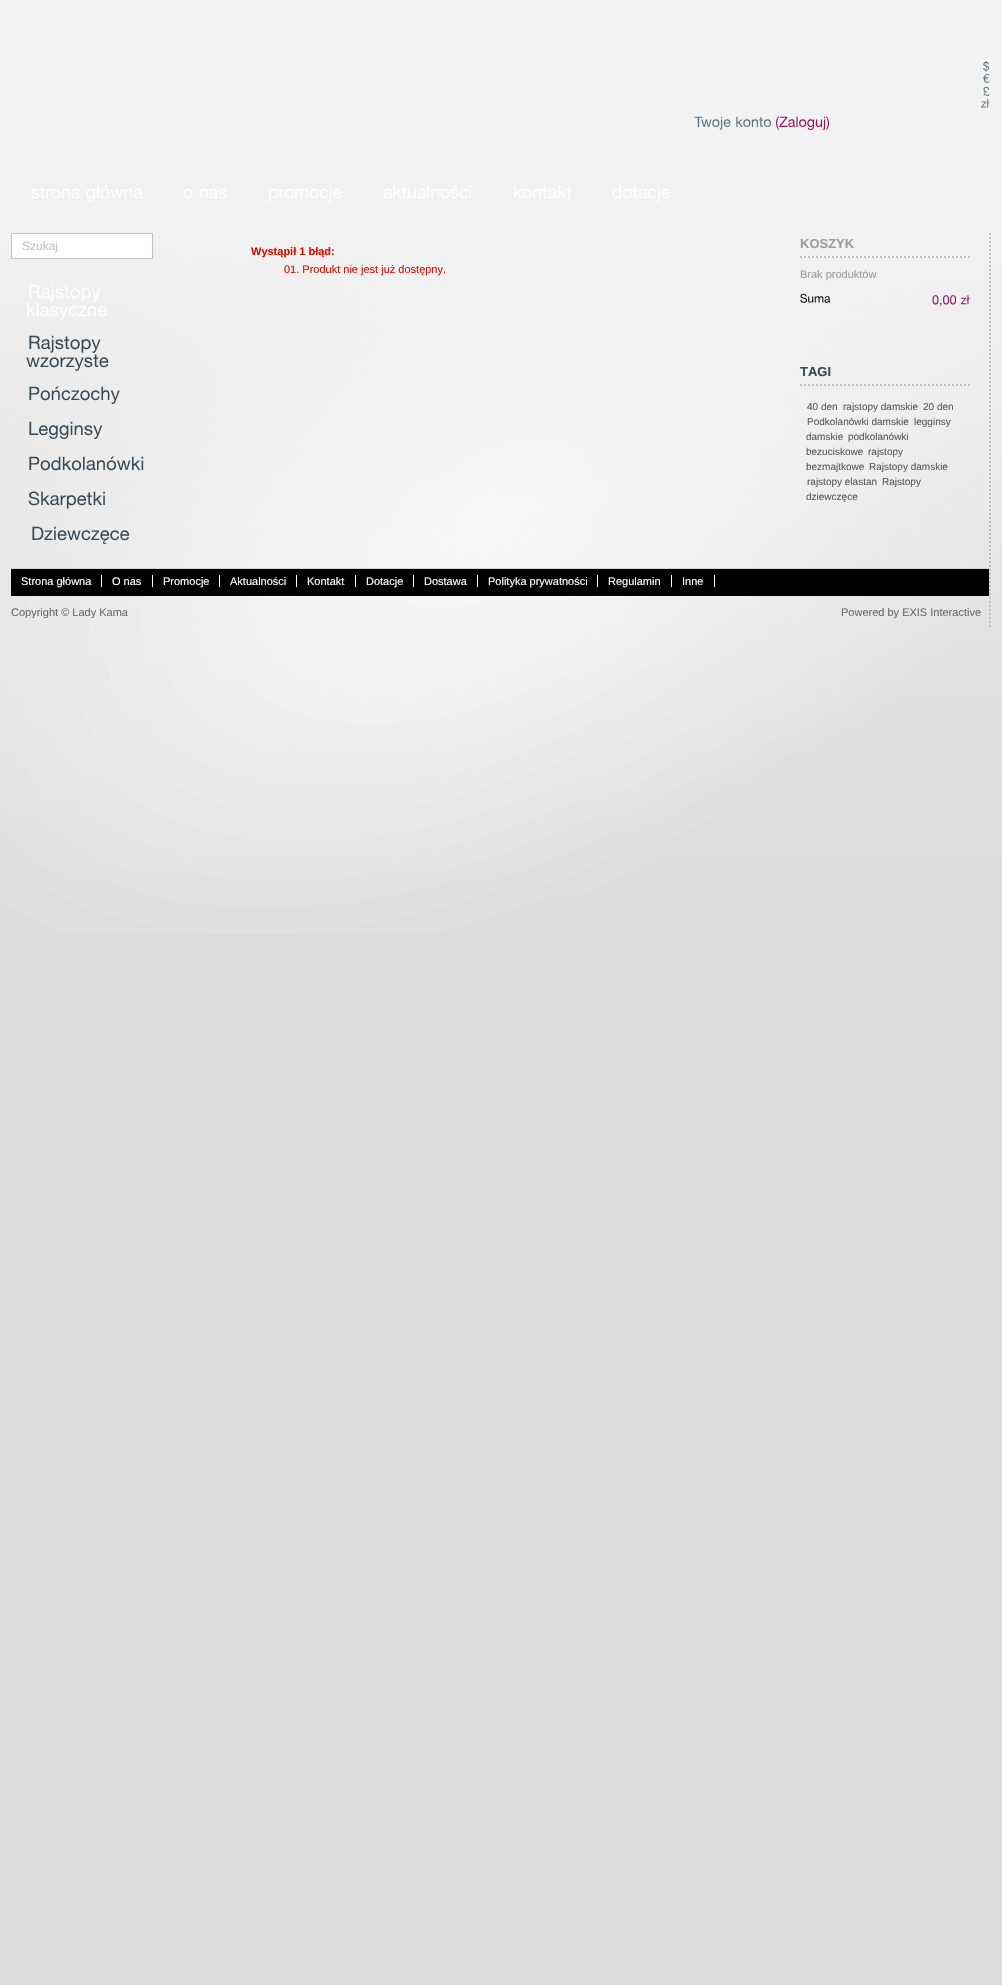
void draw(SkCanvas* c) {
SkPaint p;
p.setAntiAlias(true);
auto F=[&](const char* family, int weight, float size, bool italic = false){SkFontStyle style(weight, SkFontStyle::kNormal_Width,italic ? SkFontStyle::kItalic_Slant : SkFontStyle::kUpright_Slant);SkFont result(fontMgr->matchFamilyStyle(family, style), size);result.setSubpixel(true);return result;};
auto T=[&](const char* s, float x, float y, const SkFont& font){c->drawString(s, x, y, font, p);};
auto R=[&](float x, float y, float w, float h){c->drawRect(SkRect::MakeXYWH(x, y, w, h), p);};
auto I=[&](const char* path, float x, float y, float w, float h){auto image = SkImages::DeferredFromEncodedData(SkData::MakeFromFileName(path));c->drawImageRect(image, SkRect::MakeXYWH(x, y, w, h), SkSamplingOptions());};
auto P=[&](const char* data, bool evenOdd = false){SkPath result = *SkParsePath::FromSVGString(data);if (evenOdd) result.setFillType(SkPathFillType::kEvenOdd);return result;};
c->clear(0xffdbdbdb);
I("1.png",0,0,1002,934);
I("2.png",983,61,6,11);
I("3.png",983,74,7,9);
I("4.png",983,86,7,10);
I("5.png",981,99,9,9);
I("6.png",694,116,37,14);
I("7.png",736,116,36,11);
I("8.png",776,116,54,14);
I("9.png",31,186,49,13);
I("10.png",86,185,57,17);
I("11.png",183,189,10,10);
I("12.png",200,189,27,10);
I("13.png",269,185,73,17);
I("14.png",383,185,88,14);
I("15.png",514,185,57,14);
I("16.png",612,185,58,17);
p.setStroke(true);
p.setStrokeWidth(2);
p.setColor(0xffc1c1c1);
p.setPathEffect(SkDashPathEffect::Make({{2,2}}, 0));
c->drawPath(P("M990 233v395"),p);
p.setPathEffect(nullptr);
p.setStroke(false);
p.setColor(0xffffffff);
c->drawRect(SkRect::MakeXYWH(11.5,233.5,141,25),p);
p.setStroke(true);
p.setStrokeWidth(1);
p.setColor(0xffbdc2c9);
c->drawRect(SkRect::MakeXYWH(11.5,233.5,141,25),p);
auto f1 = F("Liberation Sans",400,12);
p.setStroke(false);
p.setColor(0xffc2c2c2);
T("Szukaj",22,250,f1);
I("17.png",29,284,71,18);
I("18.png",27,303,80,17);
I("19.png",29,335,72,18);
I("20.png",26,354,83,17);
I("21.png",29,386,91,18);
I("22.png",29,421,74,18);
I("23.png",29,456,115,15);
I("24.png",28,491,77,18);
I("25.png",32,526,98,18);
auto f2 = F("Liberation Sans",700,11);
p.setColor(0xffda0f00);
T("Wystąpił 1 błąd:",251,255,f2);
auto f3 = F("Liberation Sans",400,11);
T("01. Produkt nie jest już dostępny.",284,273,f3);
p.setStroke(true);
p.setStrokeWidth(2);
p.setColor(0xffc1c1c1);
p.setPathEffect(SkDashPathEffect::Make({{2,2}}, 0));
c->drawPath(P("M800 257h170"),p);
p.setPathEffect(nullptr);
auto f4 = F("Liberation Sans",700,13);
p.setStroke(false);
p.setColor(0xff9c9c9c);
T("KOSZYK",800,248,f4);
T("Brak produktów",800,278,f3);
I("26.png",800,293,31,10);
I("27.png",932,295,25,12);
I("28.png",960,295,10,10);
p.setStroke(true);
p.setColor(0xffc1c1c1);
p.setPathEffect(SkDashPathEffect::Make({{2,2}}, 0));
c->drawPath(P("M800 385h170"),p);
p.setPathEffect(nullptr);
p.setStroke(false);
p.setColor(0xff374853);
T("TAGI",800,376,f4);
auto f5 = F("Liberation Sans",400,10);
p.setColor(0xff595a5e);
T("40 den",807,410,f5);
T("rajstopy damskie",843,410,f5);
T("20 den",923,410,f5);
T("Podkolanówki damskie",807,425,f5);
T("legginsy",914,425,f5);
T("damskie",806,440,f5);
T("podkolanówki",848,440,f5);
T("bezuciskowe",806,455,f5);
T("rajstopy",868,455,f5);
T("bezmajtkowe",806,470,f5);
T("Rajstopy damskie",869,470,f5);
T("rajstopy elastan",807,485,f5);
T("Rajstopy",882,485,f5);
T("dziewczęce",806,500,f5);
p.setColor(0xff000000);
R(11,569,978,27);
p.setColor(0xffd0d3d8);
R(11,568,978,1);
p.setColor(0xffffffff);
R(101,575,1,12);
T("Strona główna",21,585,f3);
R(152,575,1,12);
T("O nas",112,585,f3);
R(219,575,1,12);
T("Promocje",163,585,f3);
R(296,575,1,12);
T("Aktualności",230,585,f3);
R(355,575,1,12);
T("Kontakt",307,585,f3);
R(413,575,1,12);
T("Dotacje",366,585,f3);
R(477,575,1,12);
T("Dostawa",424,585,f3);
R(597,575,1,12);
T("Polityka prywatności",488,585,f3);
R(671,575,1,12);
T("Regulamin",608,585,f3);
R(714,575,1,12);
T("Inne",682,585,f3);
c->save();
c->clipRect(SkRect::MakeXYWH(11,606,978,12));
p.setColor(0xff696969);
T("Copyright © Lady Kama",11,616,f3);
c->restore();
T("Powered by EXIS Interactive",841,616,f3);
}
